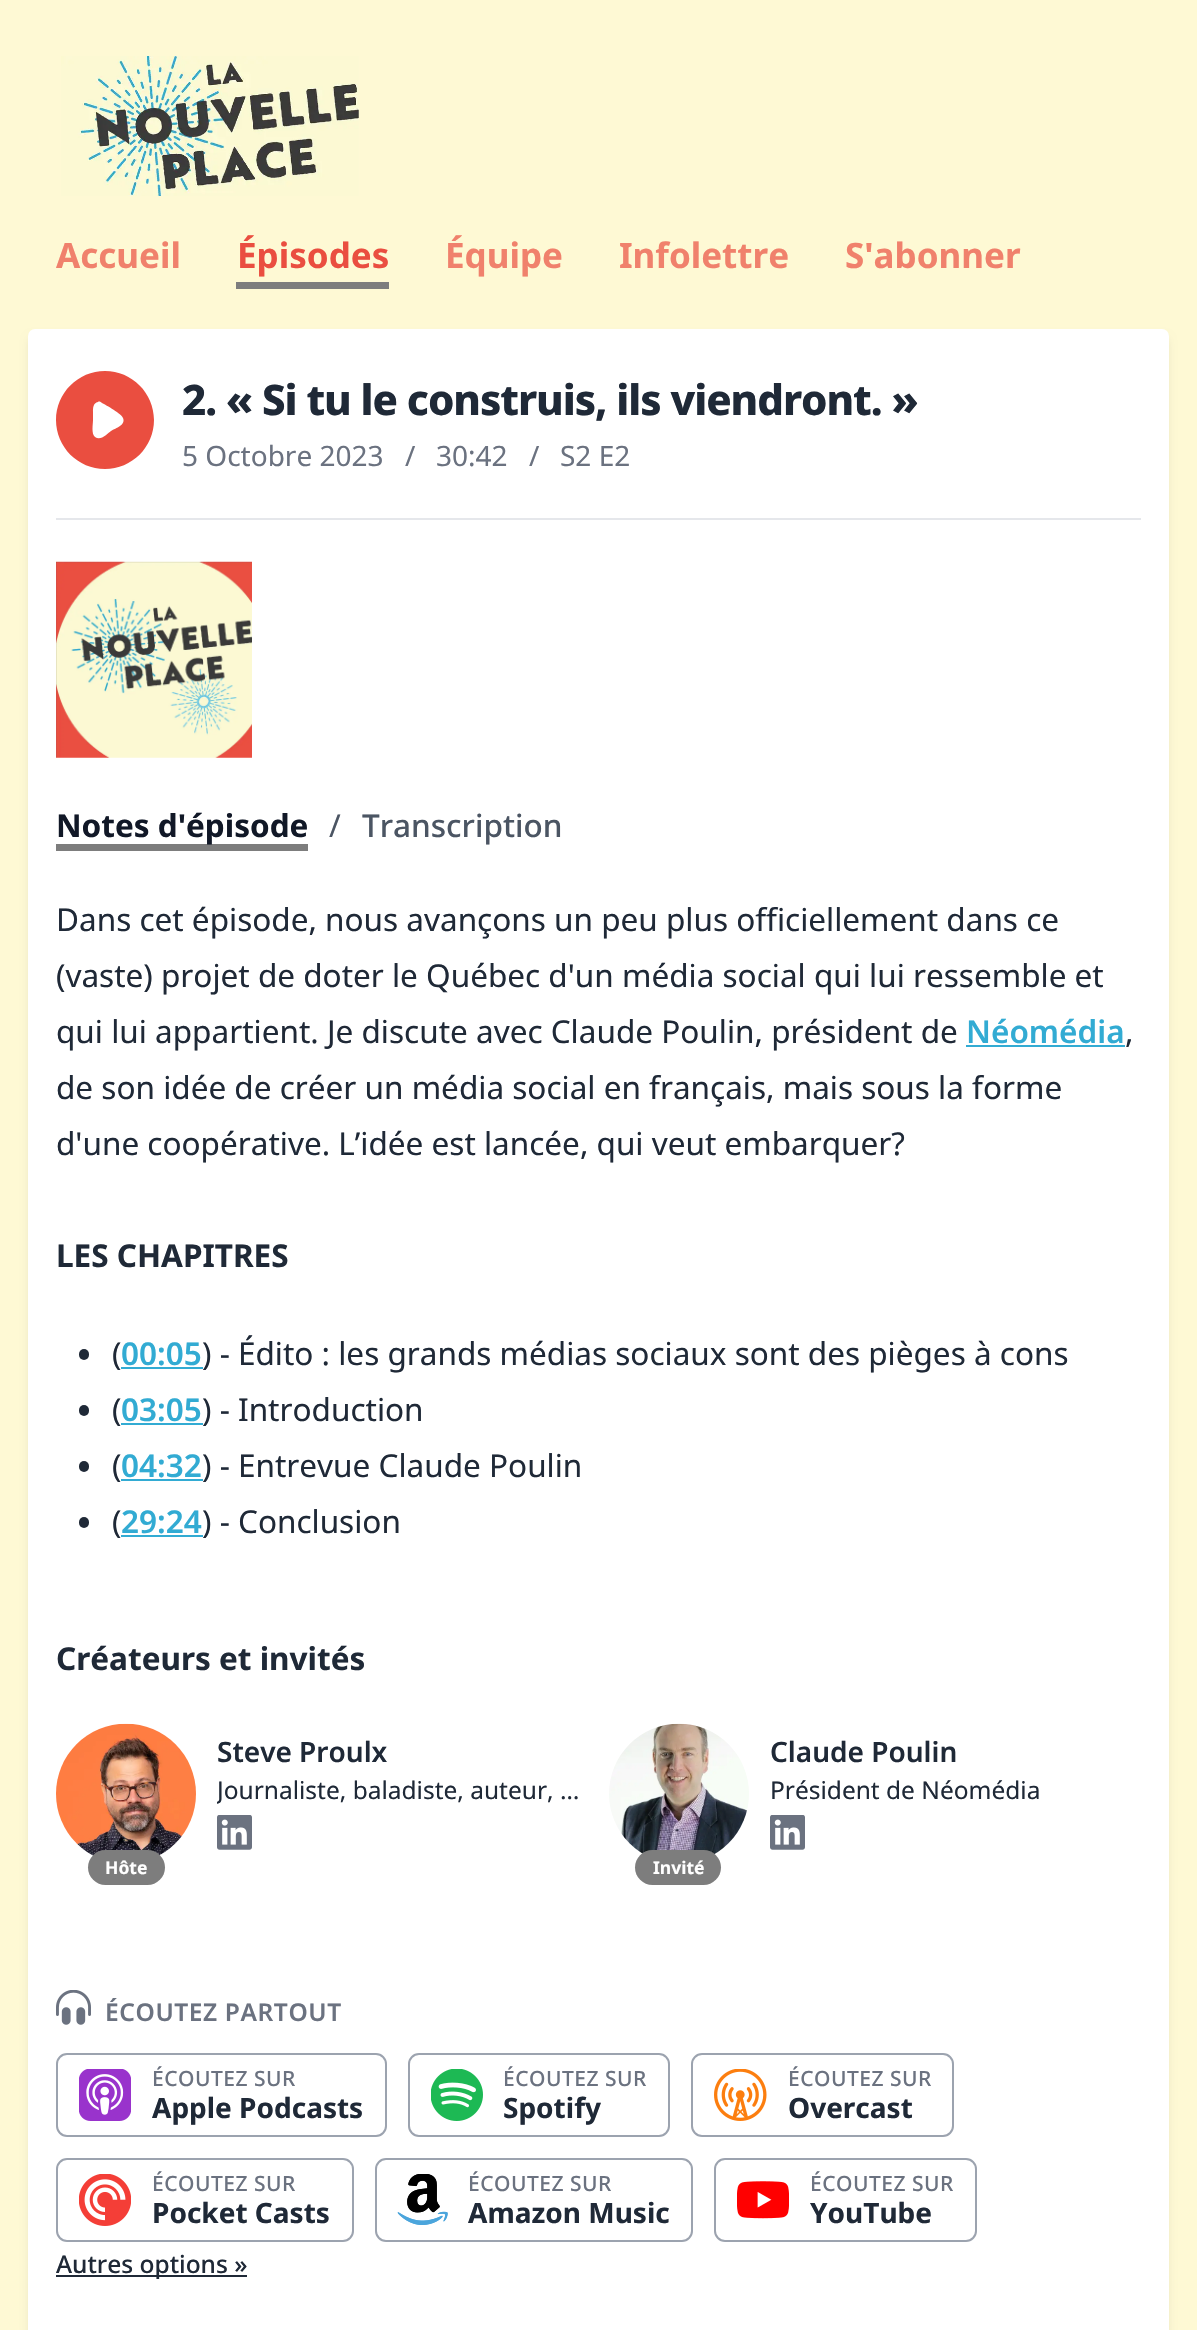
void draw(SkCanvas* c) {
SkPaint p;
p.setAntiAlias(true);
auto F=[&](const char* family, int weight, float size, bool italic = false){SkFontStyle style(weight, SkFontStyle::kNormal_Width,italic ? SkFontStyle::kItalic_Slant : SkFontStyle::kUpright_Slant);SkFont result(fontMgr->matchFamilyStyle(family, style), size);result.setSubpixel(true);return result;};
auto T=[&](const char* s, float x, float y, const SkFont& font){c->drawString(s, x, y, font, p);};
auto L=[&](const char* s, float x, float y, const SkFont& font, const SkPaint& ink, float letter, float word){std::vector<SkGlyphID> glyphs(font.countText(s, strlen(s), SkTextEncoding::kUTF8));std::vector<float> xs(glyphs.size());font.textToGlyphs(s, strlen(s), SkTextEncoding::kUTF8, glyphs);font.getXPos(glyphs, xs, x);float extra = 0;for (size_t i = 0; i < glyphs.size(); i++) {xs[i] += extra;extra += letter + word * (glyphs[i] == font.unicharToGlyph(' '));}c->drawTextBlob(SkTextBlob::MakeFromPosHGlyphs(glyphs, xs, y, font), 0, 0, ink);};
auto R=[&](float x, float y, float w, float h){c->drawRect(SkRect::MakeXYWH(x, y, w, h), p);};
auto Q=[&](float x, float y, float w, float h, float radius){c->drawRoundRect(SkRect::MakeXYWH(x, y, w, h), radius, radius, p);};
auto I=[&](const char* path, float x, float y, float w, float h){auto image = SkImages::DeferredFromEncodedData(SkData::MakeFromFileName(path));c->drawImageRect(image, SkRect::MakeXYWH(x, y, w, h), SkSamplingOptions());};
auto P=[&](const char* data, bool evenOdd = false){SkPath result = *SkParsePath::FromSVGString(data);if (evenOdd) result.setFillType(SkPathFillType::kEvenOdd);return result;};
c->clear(0xfffef9d4);
I("1.png",61,56,298,140);
auto f1 = F("Noto Sans",700,35);
p.setColor(0xfff0816c);
T("Accueil",56,268,f1);
p.setColor(0xffea4e40);
T("Épisodes",237,268,f1);
p.setColor(0xff7d7d7d);
R(236,282,153,7);
p.setColor(0xfff0816c);
T("Équipe",445,268,f1);
T("Infolettre",619,268,f1);
T("S'abonner",845,268,f1);
p.setColor(0x1a000000);
p.setMaskFilter(SkMaskFilter::MakeBlur(kNormal_SkBlurStyle, 5));
c->drawRoundRect(SkRect::MakeXYWH(30,338,1137,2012),5,5,p);
p.setMaskFilter(nullptr);
p.setColor(0xffffffff);
Q(28,329,1141,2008,7);
p.setColor(0xffe5e7eb);
R(56,518,1085,2);
p.setColor(0xffea4e40);
c->drawPath(P("M105 469c27 0 49-22 49-49c0-27-22-49-49-49c-27 0-49 22-49 49c0 27 22 49 49 49zm-3-66c-1-1-3-2-4-1c-5 1-5 6-5 10v8c0 4-2 14 2 17c6 4 12-3 16-6c5-3 15-6 12-13c-1-4-17-13-21-15z",true),p);
auto f2 = F("Noto Sans",800,42);
p.setColor(0xff1f2937);
L("2. « Si tu le construis, ils viendront. »",182,415,f2,p,-1.05,0);
auto f3 = F("Noto Sans",400,28);
p.setColor(0xff6b7280);
T("5 Octobre 2023",182,466,f3);
T("/",405,466,f3);
T("30:42",436,466,f3);
T("/",529,466,f3);
T("S2 E2",560,466,f3);
I("2.png",56,561,196,197);
p.setColor(0xff7d7d7d);
R(56,844,252,7);
auto f4 = F("Noto Sans",700,31.5);
p.setColor(0xff111827);
T("Notes d'épisode",56,837,f4);
auto f5 = F("Noto Sans",400,31.5);
p.setColor(0xff4b5563);
T("/",329,837,f5);
auto f6 = F("Noto Sans",500,31.5);
T("Transcription",362,837,f6);
p.setColor(0xff1f2937);
T("Dans cet épisode, nous avançons un peu plus officiellement dans ce",56,931,f5);
T("(vaste) projet de doter le Québec d'un média social qui lui ressemble et",56,987,f5);
T("qui lui appartient. Je discute avec Claude Poulin, président de",56,1043,f5);
auto f7 = F("Noto Sans",600,31.5);
p.setColor(0xff32abd3);
T("Néomédia",966,1043,f7);
R(966,1045,159,2);
p.setColor(0xff1f2937);
T(",",1125,1043,f5);
T("de son idée de créer un média social en français, mais sous la forme",56,1099,f5);
T("d'une coopérative. L’idée est lancée, qui veut embarquer?",56,1155,f5);
T("LES CHAPITRES",56,1267,f4);
Q(79,1349,10,11,5);
T("(",112,1365,f5);
p.setColor(0xff32abd3);
T("00:05",121,1365,f7);
R(121,1367,82,2);
p.setColor(0xff1f2937);
T(") - Édito : les grands médias sociaux sont des pièges à cons",202,1365,f5);
Q(79,1405,10,11,5);
T("(",112,1421,f5);
p.setColor(0xff32abd3);
T("03:05",121,1421,f7);
R(121,1423,82,2);
p.setColor(0xff1f2937);
T(") - Introduction",202,1421,f5);
Q(79,1461,10,11,5);
T("(",112,1477,f5);
p.setColor(0xff32abd3);
T("04:32",121,1477,f7);
R(121,1479,82,2);
p.setColor(0xff1f2937);
T(") - Entrevue Claude Poulin",202,1477,f5);
Q(79,1517,10,11,5);
T("(",112,1533,f5);
p.setColor(0xff32abd3);
T("29:24",121,1533,f7);
R(121,1535,82,2);
p.setColor(0xff1f2937);
T(") - Conclusion",202,1533,f5);
T("Créateurs et invités",56,1670,f4);
auto f8 = F("Noto Sans",600,28);
T("Steve Proulx",217,1762,f8);
c->save();
c->clipRect(SkRect::MakeXYWH(217,1773,371,35));
auto f9 = F("Noto Sans",400,24.5);
T("Journaliste, baladiste, auteur, …",217,1799,f9);
c->restore();
I("3.png",217,1815,35,35);
I("4.png",56,1723,140,133);
p.setColor(0xff7d7d7d);
Q(88,1850,77,35,17.5);
auto f10 = F("Noto Sans",700,17.5);
p.setColor(0xffffffff);
T("Hôte",105,1874,f10);
p.setColor(0xff1f2937);
T("Claude Poulin",770,1762,f8);
T("Président de Néomédia",770,1799,f9);
I("3.png",770,1815,35,35);
I("5.png",609,1723,140,132);
p.setColor(0xff7d7d7d);
Q(635,1850,86,35,17.5);
p.setColor(0xffffffff);
T("Invité",653,1874,f10);
I("6.png",56,1990,35,35);
auto f11 = F("Noto Sans",600,24.5);
p.setColor(0xff6b7280);
L("ÉCOUTEZ PARTOUT",105,2021,f11,p,.6,0);
p.setStroke(true);
p.setStrokeWidth(2);
p.setColor(0xff9ca3af);
c->drawRoundRect(SkRect::MakeXYWH(57,2054,329,82),10,10,p);
I("7.png",79,2069,52,52);
auto f12 = F("Noto Sans",500,21);
p.setStroke(false);
p.setColor(0xff6b7280);
L("ÉCOUTEZ SUR",152,2086,f12,p,.5,0);
auto f13 = F("Noto Sans",700,28);
p.setColor(0xff1f2937);
T("Apple Podcasts",152,2118,f13);
p.setStroke(true);
p.setColor(0xff9ca3af);
c->drawRoundRect(SkRect::MakeXYWH(409,2054,260,82),10,10,p);
I("8.png",431,2069,52,52);
p.setStroke(false);
p.setColor(0xff6b7280);
L("ÉCOUTEZ SUR",503,2086,f12,p,.5,0);
p.setColor(0xff1f2937);
T("Spotify",503,2118,f13);
p.setStroke(true);
p.setColor(0xff9ca3af);
c->drawRoundRect(SkRect::MakeXYWH(692,2054,261,82),10,10,p);
I("9.png",714,2069,53,52);
p.setStroke(false);
p.setColor(0xff6b7280);
L("ÉCOUTEZ SUR",788,2086,f12,p,.5,0);
p.setColor(0xff1f2937);
T("Overcast",788,2118,f13);
p.setStroke(true);
p.setColor(0xff9ca3af);
c->drawRoundRect(SkRect::MakeXYWH(57,2159,296,82),10,10,p);
I("10.png",79,2174,52,52);
p.setStroke(false);
p.setColor(0xff6b7280);
L("ÉCOUTEZ SUR",152,2191,f12,p,.5,0);
p.setColor(0xff1f2937);
T("Pocket Casts",152,2223,f13);
p.setStroke(true);
p.setColor(0xff9ca3af);
c->drawRoundRect(SkRect::MakeXYWH(376,2159,316,82),10,10,p);
I("11.png",397,2174,51,51);
p.setStroke(false);
p.setColor(0xff6b7280);
L("ÉCOUTEZ SUR",468,2191,f12,p,.5,0);
p.setColor(0xff1f2937);
T("Amazon Music",468,2223,f13);
p.setStroke(true);
p.setColor(0xff9ca3af);
c->drawRoundRect(SkRect::MakeXYWH(715,2159,261,82),10,10,p);
I("12.png",737,2181,52,38);
p.setStroke(false);
p.setColor(0xff6b7280);
L("ÉCOUTEZ SUR",810,2191,f12,p,.5,0);
p.setColor(0xff1f2937);
T("YouTube",810,2223,f13);
R(56,2275,191,2);
auto f14 = F("Noto Sans",500,24.5);
T("Autres options »",56,2273,f14);
}
